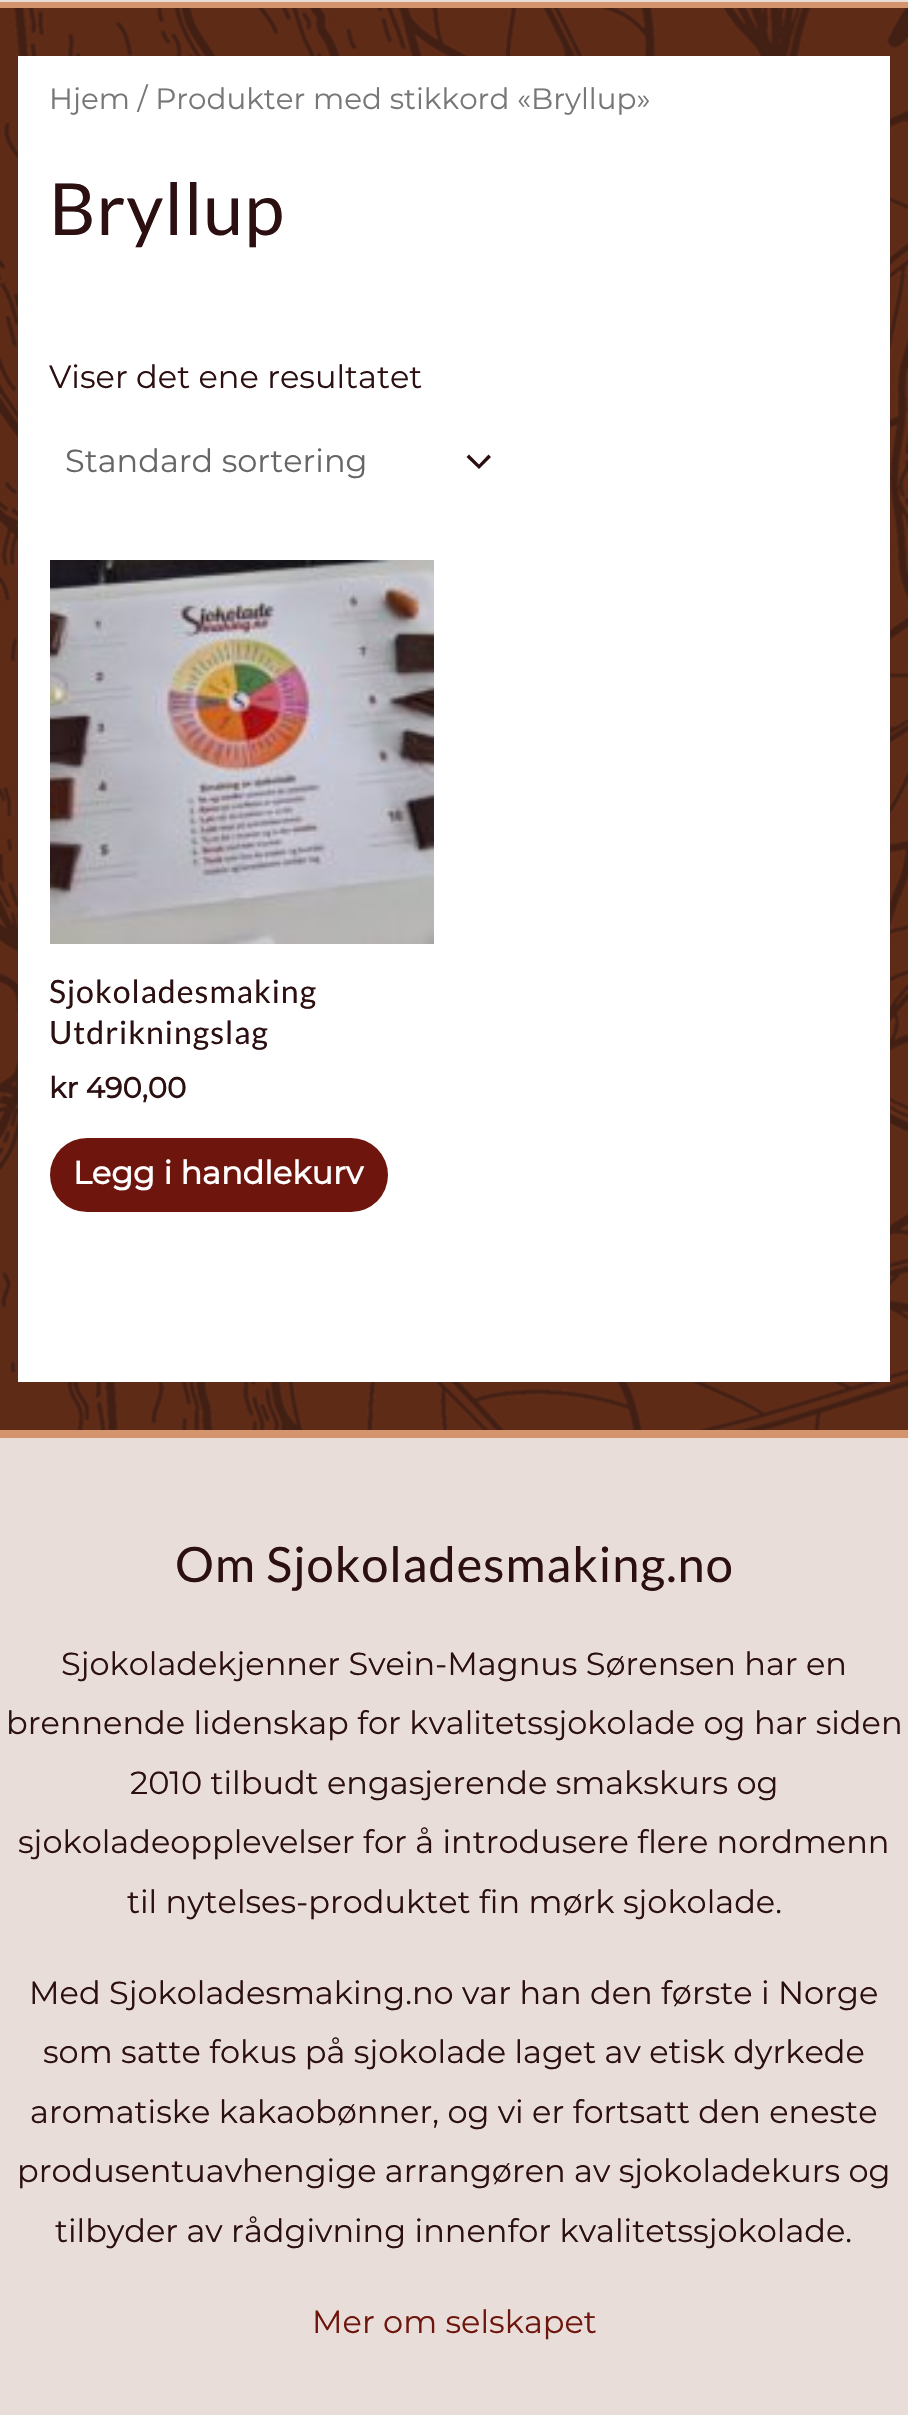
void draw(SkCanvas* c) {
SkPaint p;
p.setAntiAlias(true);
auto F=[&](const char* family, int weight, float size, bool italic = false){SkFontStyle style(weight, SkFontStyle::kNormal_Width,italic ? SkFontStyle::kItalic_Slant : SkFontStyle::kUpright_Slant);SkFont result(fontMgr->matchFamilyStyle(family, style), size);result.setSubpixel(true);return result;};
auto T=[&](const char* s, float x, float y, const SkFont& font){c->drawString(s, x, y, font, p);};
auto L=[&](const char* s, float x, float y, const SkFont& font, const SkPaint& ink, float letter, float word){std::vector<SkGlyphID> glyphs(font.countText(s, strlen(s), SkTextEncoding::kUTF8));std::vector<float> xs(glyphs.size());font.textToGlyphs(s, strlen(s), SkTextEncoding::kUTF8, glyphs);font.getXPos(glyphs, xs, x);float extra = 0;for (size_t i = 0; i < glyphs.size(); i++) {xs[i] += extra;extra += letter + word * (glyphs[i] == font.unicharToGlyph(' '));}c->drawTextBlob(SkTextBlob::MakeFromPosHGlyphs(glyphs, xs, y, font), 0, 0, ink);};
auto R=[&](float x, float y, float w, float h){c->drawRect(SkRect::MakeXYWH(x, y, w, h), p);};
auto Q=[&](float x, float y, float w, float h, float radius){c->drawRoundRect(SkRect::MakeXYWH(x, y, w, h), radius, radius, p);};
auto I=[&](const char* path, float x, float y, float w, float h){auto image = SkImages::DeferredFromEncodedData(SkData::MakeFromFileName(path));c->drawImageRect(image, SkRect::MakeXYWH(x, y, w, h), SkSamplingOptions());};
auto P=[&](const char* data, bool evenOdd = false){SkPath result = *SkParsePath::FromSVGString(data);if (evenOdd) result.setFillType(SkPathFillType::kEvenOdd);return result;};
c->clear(0xffffffff);
I("1.png",0,8,908,1422);
p.setColor(0xffe8ddd8);
R(0,0,908,2);
p.setColor(0xffd4946e);
R(0,2,908,6);
p.setColor(0xffffffff);
R(18,56,872,1326);
auto f1 = F("Montserrat",100,29.4);
p.setColor(0xff777777);
T("Hjem / Produkter med stikkord «Bryllup»",49,109,f1);
auto f2 = F("Lato",400,72);
p.setColor(0xff2b0f11);
L("Bryllup",49,235,f2,p,1,0);
auto f3 = F("Montserrat",100,32);
T("Viser det ene resultatet",49,388,f3);
c->drawPath(P("M466.5 457l12.5 12l12-12l-2.5-2.5l-9.5 10l-10-10z"),p);
p.setColor(0xff666666);
T("Standard sortering",65,472,f3);
I("2.png",50,560,384,384);
auto f4 = F("Lato",400,32);
p.setColor(0xff2b0f11);
L("Sjokoladesmaking",49,1003,f4,p,1,0);
L("Utdrikningslag",49,1044,f4,p,1,0);
auto f5 = F("Montserrat",700,29);
T("kr 490,00",49,1098,f5);
p.setColor(0xff6e150d);
Q(50,1138,338,74,37);
auto f6 = F("Montserrat",700,32);
p.setColor(0xffffffff);
T("Legg i handlekurv",73,1184,f6);
p.setColor(0xffe8ddd8);
R(0,1438,908,977);
p.setColor(0xffd4946e);
R(0,1430,908,8);
auto f7 = F("Lato",400,48.75);
p.setColor(0xff2b0f11);
L("Om Sjokoladesmaking.no",175,1582,f7,p,1,0);
T("Sjokoladekjenner Svein-Magnus Sørensen har en",61,1675,f3);
T("brennende lidenskap for kvalitetssjokolade og har siden",6,1734,f3);
T("2010 tilbudt engasjerende smakskurs og",130,1794,f3);
T("sjokoladeopplevelser for å introdusere flere nordmenn",18,1853,f3);
T("til nytelses-produktet fin mørk sjokolade.",127,1913,f3);
T("Med Sjokoladesmaking.no var han den første i Norge",29,2004,f3);
T("som satte fokus på sjokolade laget av etisk dyrkede",43,2063,f3);
T("aromatiske kakaobønner, og vi er fortsatt den eneste",30,2123,f3);
T("produsentuavhengige arrangøren av sjokoladekurs og",17,2182,f3);
T("tilbyder av rådgivning innenfor kvalitetssjokolade.",55,2242,f3);
p.setColor(0xff6e150d);
T("Mer om selskapet",312,2333,f3);
}
